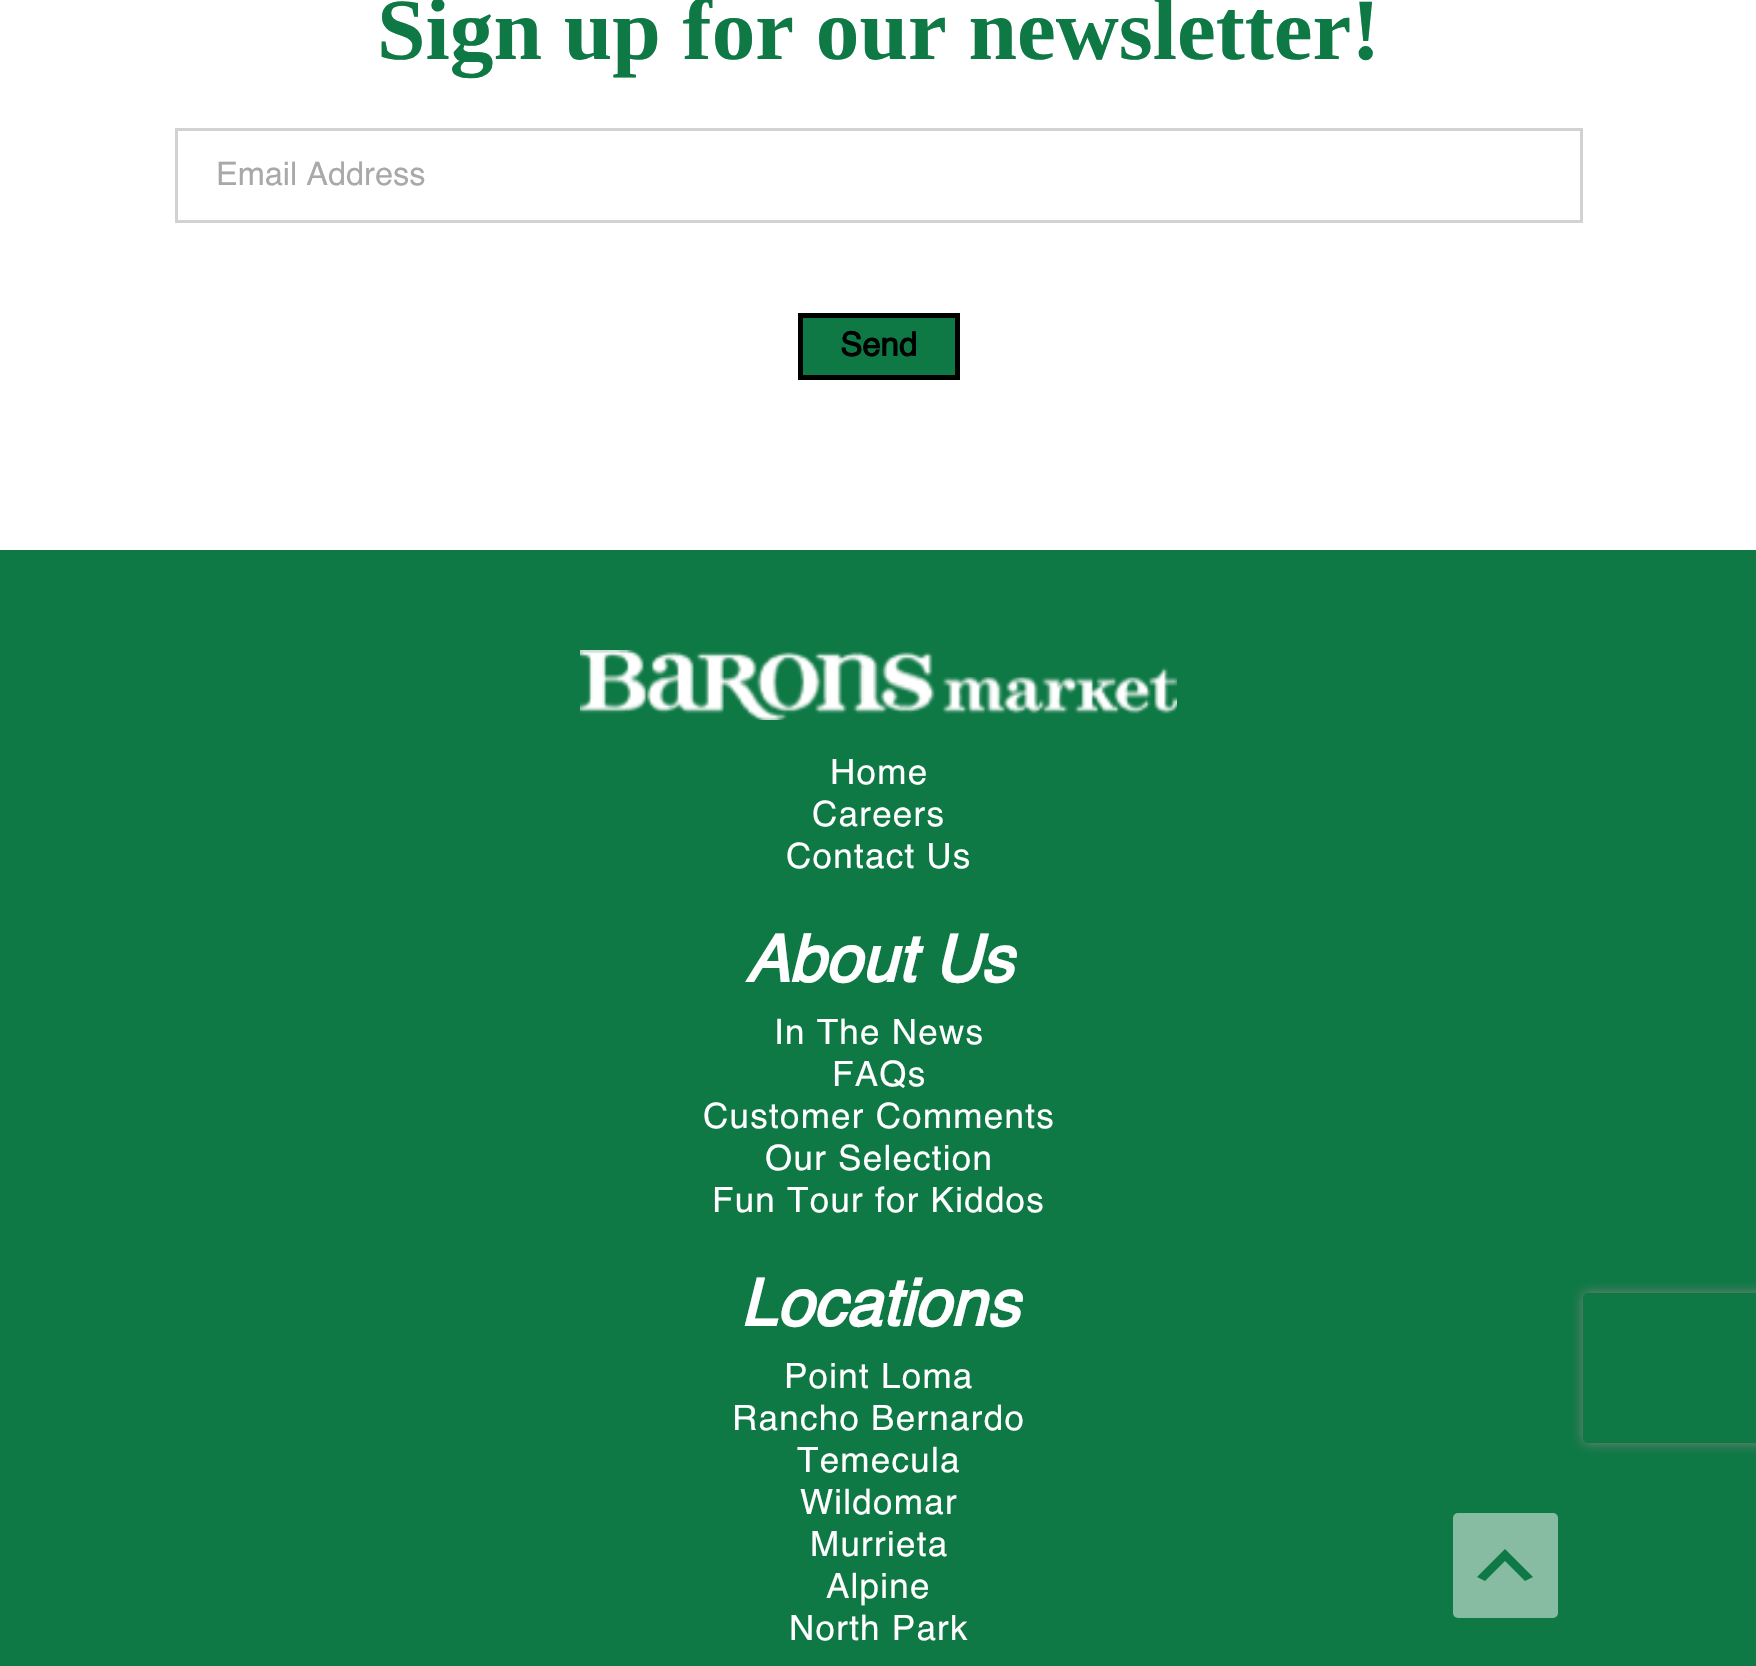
void draw(SkCanvas* c) {
SkPaint p;
p.setAntiAlias(true);
auto F=[&](const char* family, int weight, float size, bool italic = false){SkFontStyle style(weight, SkFontStyle::kNormal_Width,italic ? SkFontStyle::kItalic_Slant : SkFontStyle::kUpright_Slant);SkFont result(fontMgr->matchFamilyStyle(family, style), size);result.setSubpixel(true);return result;};
auto T=[&](const char* s, float x, float y, const SkFont& font){c->drawString(s, x, y, font, p);};
auto L=[&](const char* s, float x, float y, const SkFont& font, const SkPaint& ink, float letter, float word){std::vector<SkGlyphID> glyphs(font.countText(s, strlen(s), SkTextEncoding::kUTF8));std::vector<float> xs(glyphs.size());font.textToGlyphs(s, strlen(s), SkTextEncoding::kUTF8, glyphs);font.getXPos(glyphs, xs, x);float extra = 0;for (size_t i = 0; i < glyphs.size(); i++) {xs[i] += extra;extra += letter + word * (glyphs[i] == font.unicharToGlyph(' '));}c->drawTextBlob(SkTextBlob::MakeFromPosHGlyphs(glyphs, xs, y, font), 0, 0, ink);};
auto R=[&](float x, float y, float w, float h){c->drawRect(SkRect::MakeXYWH(x, y, w, h), p);};
auto Q=[&](float x, float y, float w, float h, float radius){c->drawRoundRect(SkRect::MakeXYWH(x, y, w, h), radius, radius, p);};
auto I=[&](const char* path, float x, float y, float w, float h){auto image = SkImages::DeferredFromEncodedData(SkData::MakeFromFileName(path));c->drawImageRect(image, SkRect::MakeXYWH(x, y, w, h), SkSamplingOptions());};
auto P=[&](const char* data, bool evenOdd = false){SkPath result = *SkParsePath::FromSVGString(data);if (evenOdd) result.setFillType(SkPathFillType::kEvenOdd);return result;};
c->clear(0xffffffff);
auto f1 = F("Liberation Serif",700,87.25);
p.setColor(0xff0e7945);
T("Sign up for our newsletter!",377,59,f1);
p.setStroke(true);
p.setStrokeWidth(3);
p.setColor(0xffd2d2d2);
c->drawRect(SkRect::MakeXYWH(176.5,129.5,1405,92),p);
auto f2 = F("Helvetica",400,32.5);
p.setStroke(false);
p.setColor(0xffaaa9a9);
T("Email Address",216,185,f2);
p.setColor(0xff0e7945);
c->drawRect(SkRect::MakeXYWH(800.5,315.5,157,62),p);
p.setStroke(true);
p.setStrokeWidth(5);
p.setColor(0xff000000);
c->drawRect(SkRect::MakeXYWH(800.5,315.5,157,62),p);
auto f3 = F("Helvetica",700,33);
p.setStroke(false);
T("Send",840,356,f3);
p.setColor(0xff0e7945);
R(0,550,1756,1116);
I("1.png",580,650,597,70);
auto f4 = F("Helvetica",400,35);
p.setColor(0xffffffff);
L("Home",830,784,f4,p,1.25,0);
L("Careers",812,826,f4,p,1.25,0);
L("Contact Us",786,868,f4,p,1.25,0);
auto f5 = F("Helvetica",700,65,true);
T("About Us",745,982,f5);
L("In The News",774,1044,f4,p,1.25,0);
L("FAQs",832,1086,f4,p,1.25,0);
L("Customer Comments",703,1128,f4,p,1.25,0);
L("Our Selection",765,1170,f4,p,1.25,0);
L("Fun Tour for Kiddos",712,1212,f4,p,1.25,0);
T("Locations",740,1326,f5);
L("Point Loma",784,1388,f4,p,1.25,0);
L("Rancho Bernardo",732,1430,f4,p,1.25,0);
L("Temecula",797,1472,f4,p,1.25,0);
L("Wildomar",800,1514,f4,p,1.25,0);
L("Murrieta",810,1556,f4,p,1.25,0);
L("Alpine",826,1598,f4,p,1.25,0);
L("North Park",789,1640,f4,p,1.25,0);
p.setColor(0xff87bca2);
Q(1453,1513,105,105,5);
p.setColor(0xff0e7946);
c->drawPath(P("M1525 1581l-20-20l-20 20l-8-4l28-28l28 28z"),p);
c->save();
c->clipPath(P("M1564 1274h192v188h-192zm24 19h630c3 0 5 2 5 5v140c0 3-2 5-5 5h-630c-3 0-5-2-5-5v-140c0-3 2-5 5-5z",true),true);
p.setColor(0xff808080);
p.setMaskFilter(SkMaskFilter::MakeBlur(kNormal_SkBlurStyle, 6));
c->drawRoundRect(SkRect::MakeXYWH(1583,1293,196,150),5,5,p);
p.setMaskFilter(nullptr);
c->restore();
}
